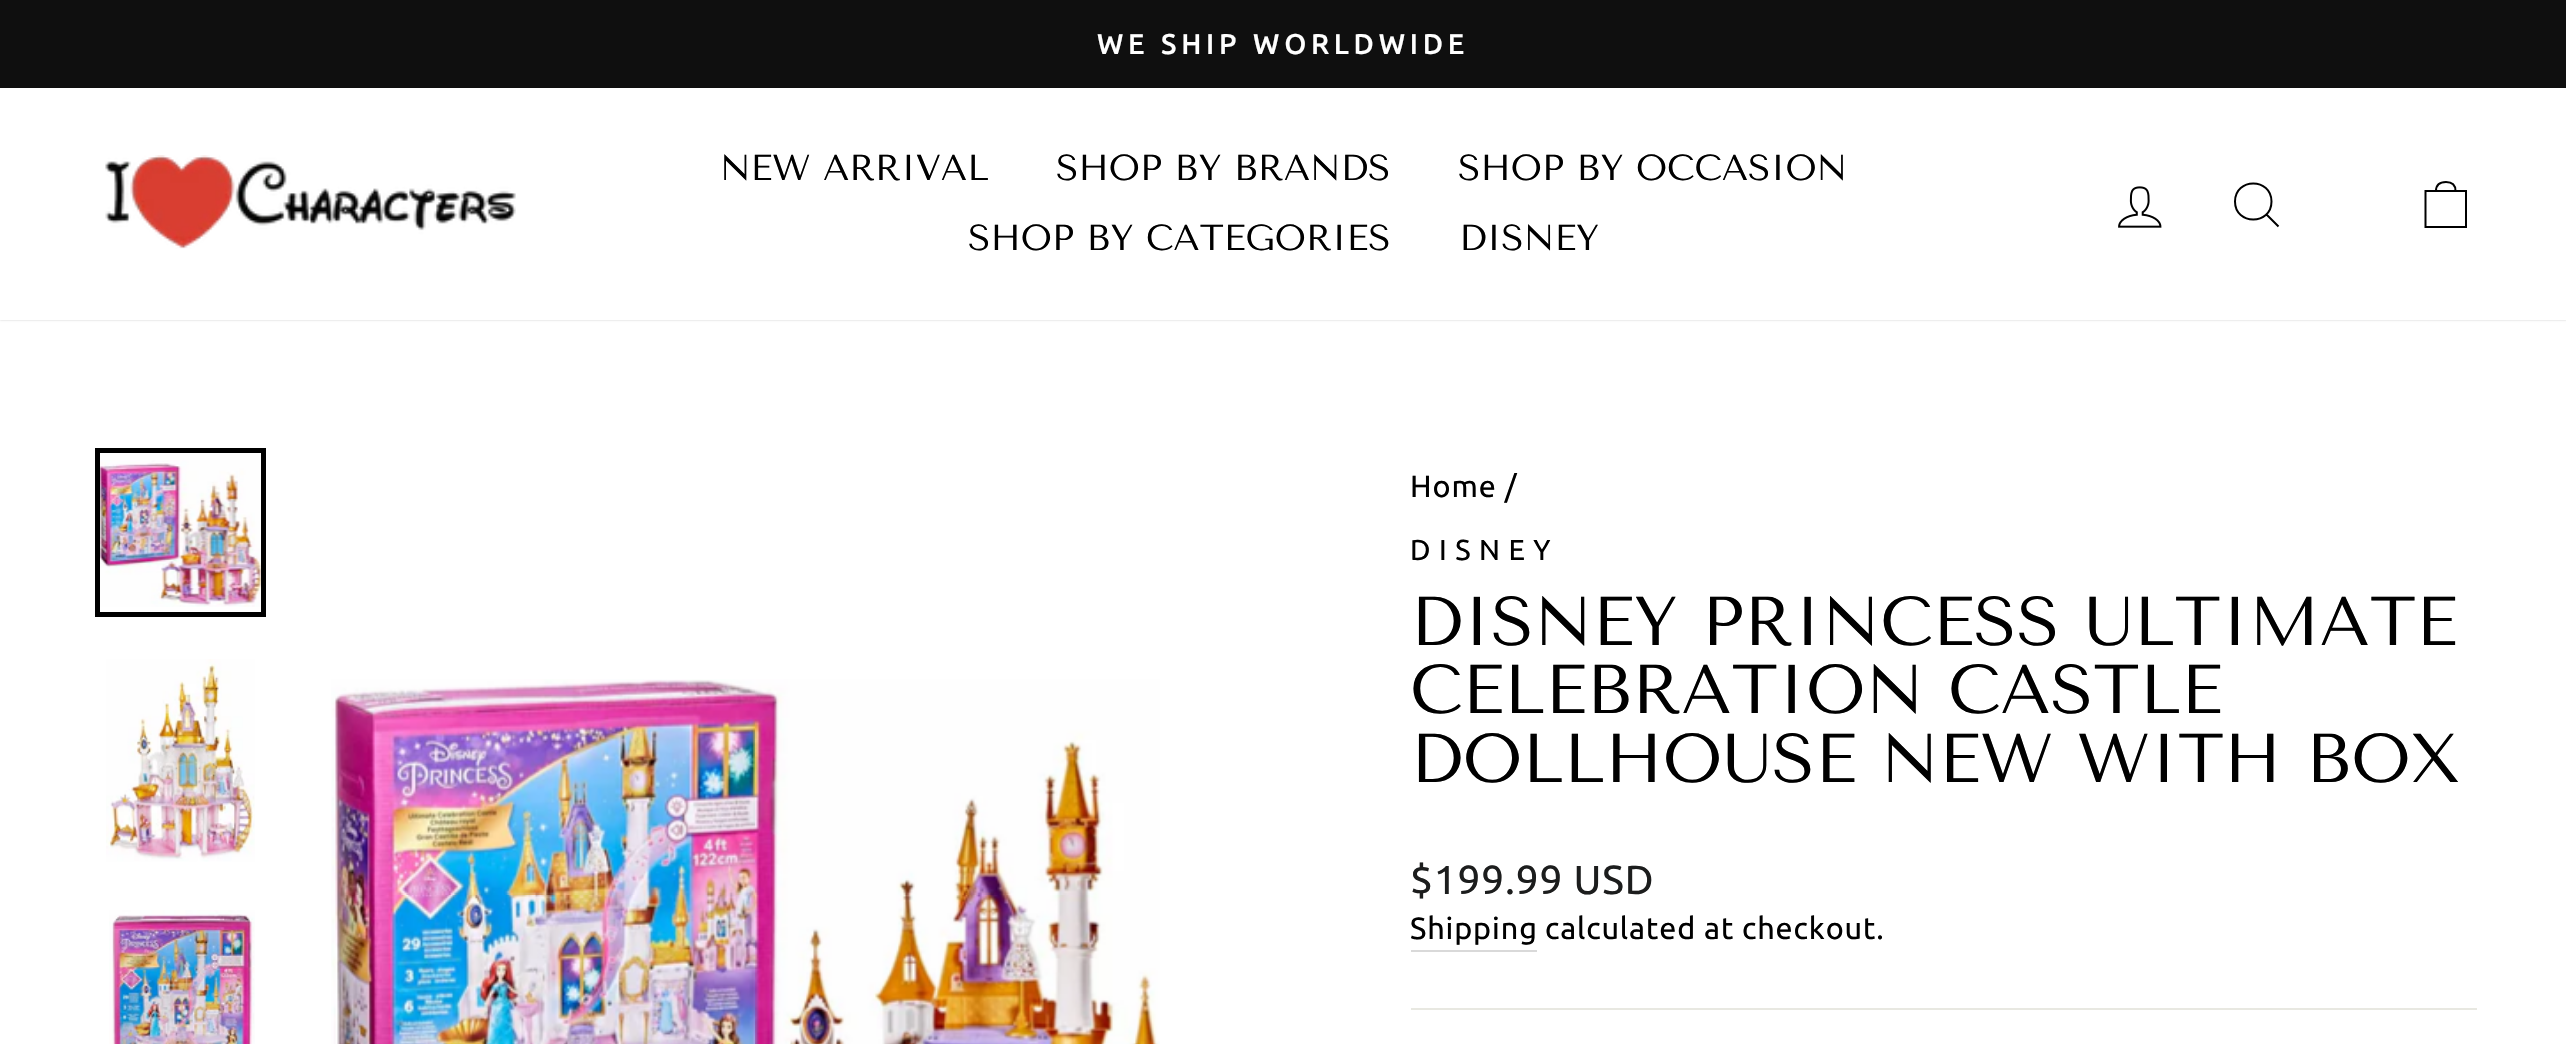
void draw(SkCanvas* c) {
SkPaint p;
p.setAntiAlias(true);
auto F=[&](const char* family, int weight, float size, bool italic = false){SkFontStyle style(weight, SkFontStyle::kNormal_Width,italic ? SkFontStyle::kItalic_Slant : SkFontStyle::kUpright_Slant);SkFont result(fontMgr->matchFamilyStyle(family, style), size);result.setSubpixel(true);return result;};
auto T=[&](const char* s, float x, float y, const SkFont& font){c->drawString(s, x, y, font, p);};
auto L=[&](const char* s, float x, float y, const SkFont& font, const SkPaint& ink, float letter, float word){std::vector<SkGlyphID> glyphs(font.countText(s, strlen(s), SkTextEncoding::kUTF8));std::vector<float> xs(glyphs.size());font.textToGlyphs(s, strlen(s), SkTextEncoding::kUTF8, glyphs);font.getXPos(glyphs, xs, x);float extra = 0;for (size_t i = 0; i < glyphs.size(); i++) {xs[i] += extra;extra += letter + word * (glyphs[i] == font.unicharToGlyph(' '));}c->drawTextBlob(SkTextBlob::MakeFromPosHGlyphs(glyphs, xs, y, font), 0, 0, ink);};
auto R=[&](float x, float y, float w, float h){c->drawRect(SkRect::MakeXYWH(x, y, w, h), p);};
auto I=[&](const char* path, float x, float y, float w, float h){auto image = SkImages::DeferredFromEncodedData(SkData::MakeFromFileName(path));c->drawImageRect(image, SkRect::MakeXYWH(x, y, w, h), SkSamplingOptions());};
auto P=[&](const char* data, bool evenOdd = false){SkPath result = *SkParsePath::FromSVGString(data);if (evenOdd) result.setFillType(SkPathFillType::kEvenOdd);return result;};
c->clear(0xffffffff);
p.setColor(0xff0f0f0f);
R(0,0,2566,88);
auto f1 = F("Ubuntu",700,27.5);
p.setColor(0xffffffff);
L("WE SHIP WORLDWIDE",1097,54,f1,p,5.5,0);
p.setColor(0x33000000);
p.setMaskFilter(SkMaskFilter::MakeBlur(kNormal_SkBlurStyle, 1));
c->drawRect(SkRect::MakeXYWH(0,88,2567,232),p);
p.setMaskFilter(nullptr);
p.setColor(0xffffffff);
R(0,88,2566,232);
I("1.png",105,155,411,94);
auto f2 = F("Tenor Sans",400,36);
p.setColor(0xff000000);
T("NEW ARRIVAL",720,180,f2);
T("SHOP BY BRANDS",1056,180,f2);
T("SHOP BY OCCASION",1458,180,f2);
T("SHOP BY CATEGORIES",968,250,f2);
T("DISNEY",1459,250,f2);
I("2.png",2118,186,44,42);
p.setStroke(true);
p.setStrokeWidth(2);
c->drawPath(P("M2271.5 201.5c0 24-36.5 24-36.5 0c0-24 36.5-24 36.5 0zm7 25l-12-12"),p);
c->drawPath(P("M2425.5 191h40.5v36h-40.5zm10.5 0c0-7 4.5-9 10-9c5 0 9.5 2 9.5 9"),p);
I("3.png",100,460,161,147);
p.setStrokeWidth(5);
c->drawRect(SkRect::MakeXYWH(97.5,450.5,166,164),p);
I("4.png",106,659,149,203);
I("5.png",109,910,146,134);
I("6.png",331,679,829,365);
auto f3 = F("Ubuntu",400,30.6);
p.setStroke(false);
L("Home /",1410,497,f3,p,.9,0);
auto f4 = F("Ubuntu",400,28.75);
L("DISNEY",1410,560,f4,p,8.5,0);
auto f5 = F("Tenor Sans",400,68.8);
T("DISNEY PRINCESS ULTIMATE",1410,645,f5);
T("CELEBRATION CASTLE",1410,713,f5);
T("DOLLHOUSE NEW WITH BOX",1410,782,f5);
auto f6 = F("Ubuntu",400,40.5);
p.setColor(0xff1c1d1d);
L("$199.99 USD",1410,894,f6,p,.9,0);
p.setColor(0xffd9d9d9);
R(1411,950,126,2);
p.setColor(0xff000000);
L("Shipping",1410,939,f3,p,.9,0);
L("calculated at checkout.",1545,939,f3,p,.9,0);
p.setColor(0xffe8e8e1);
R(1411,1008,1066,2);
}
